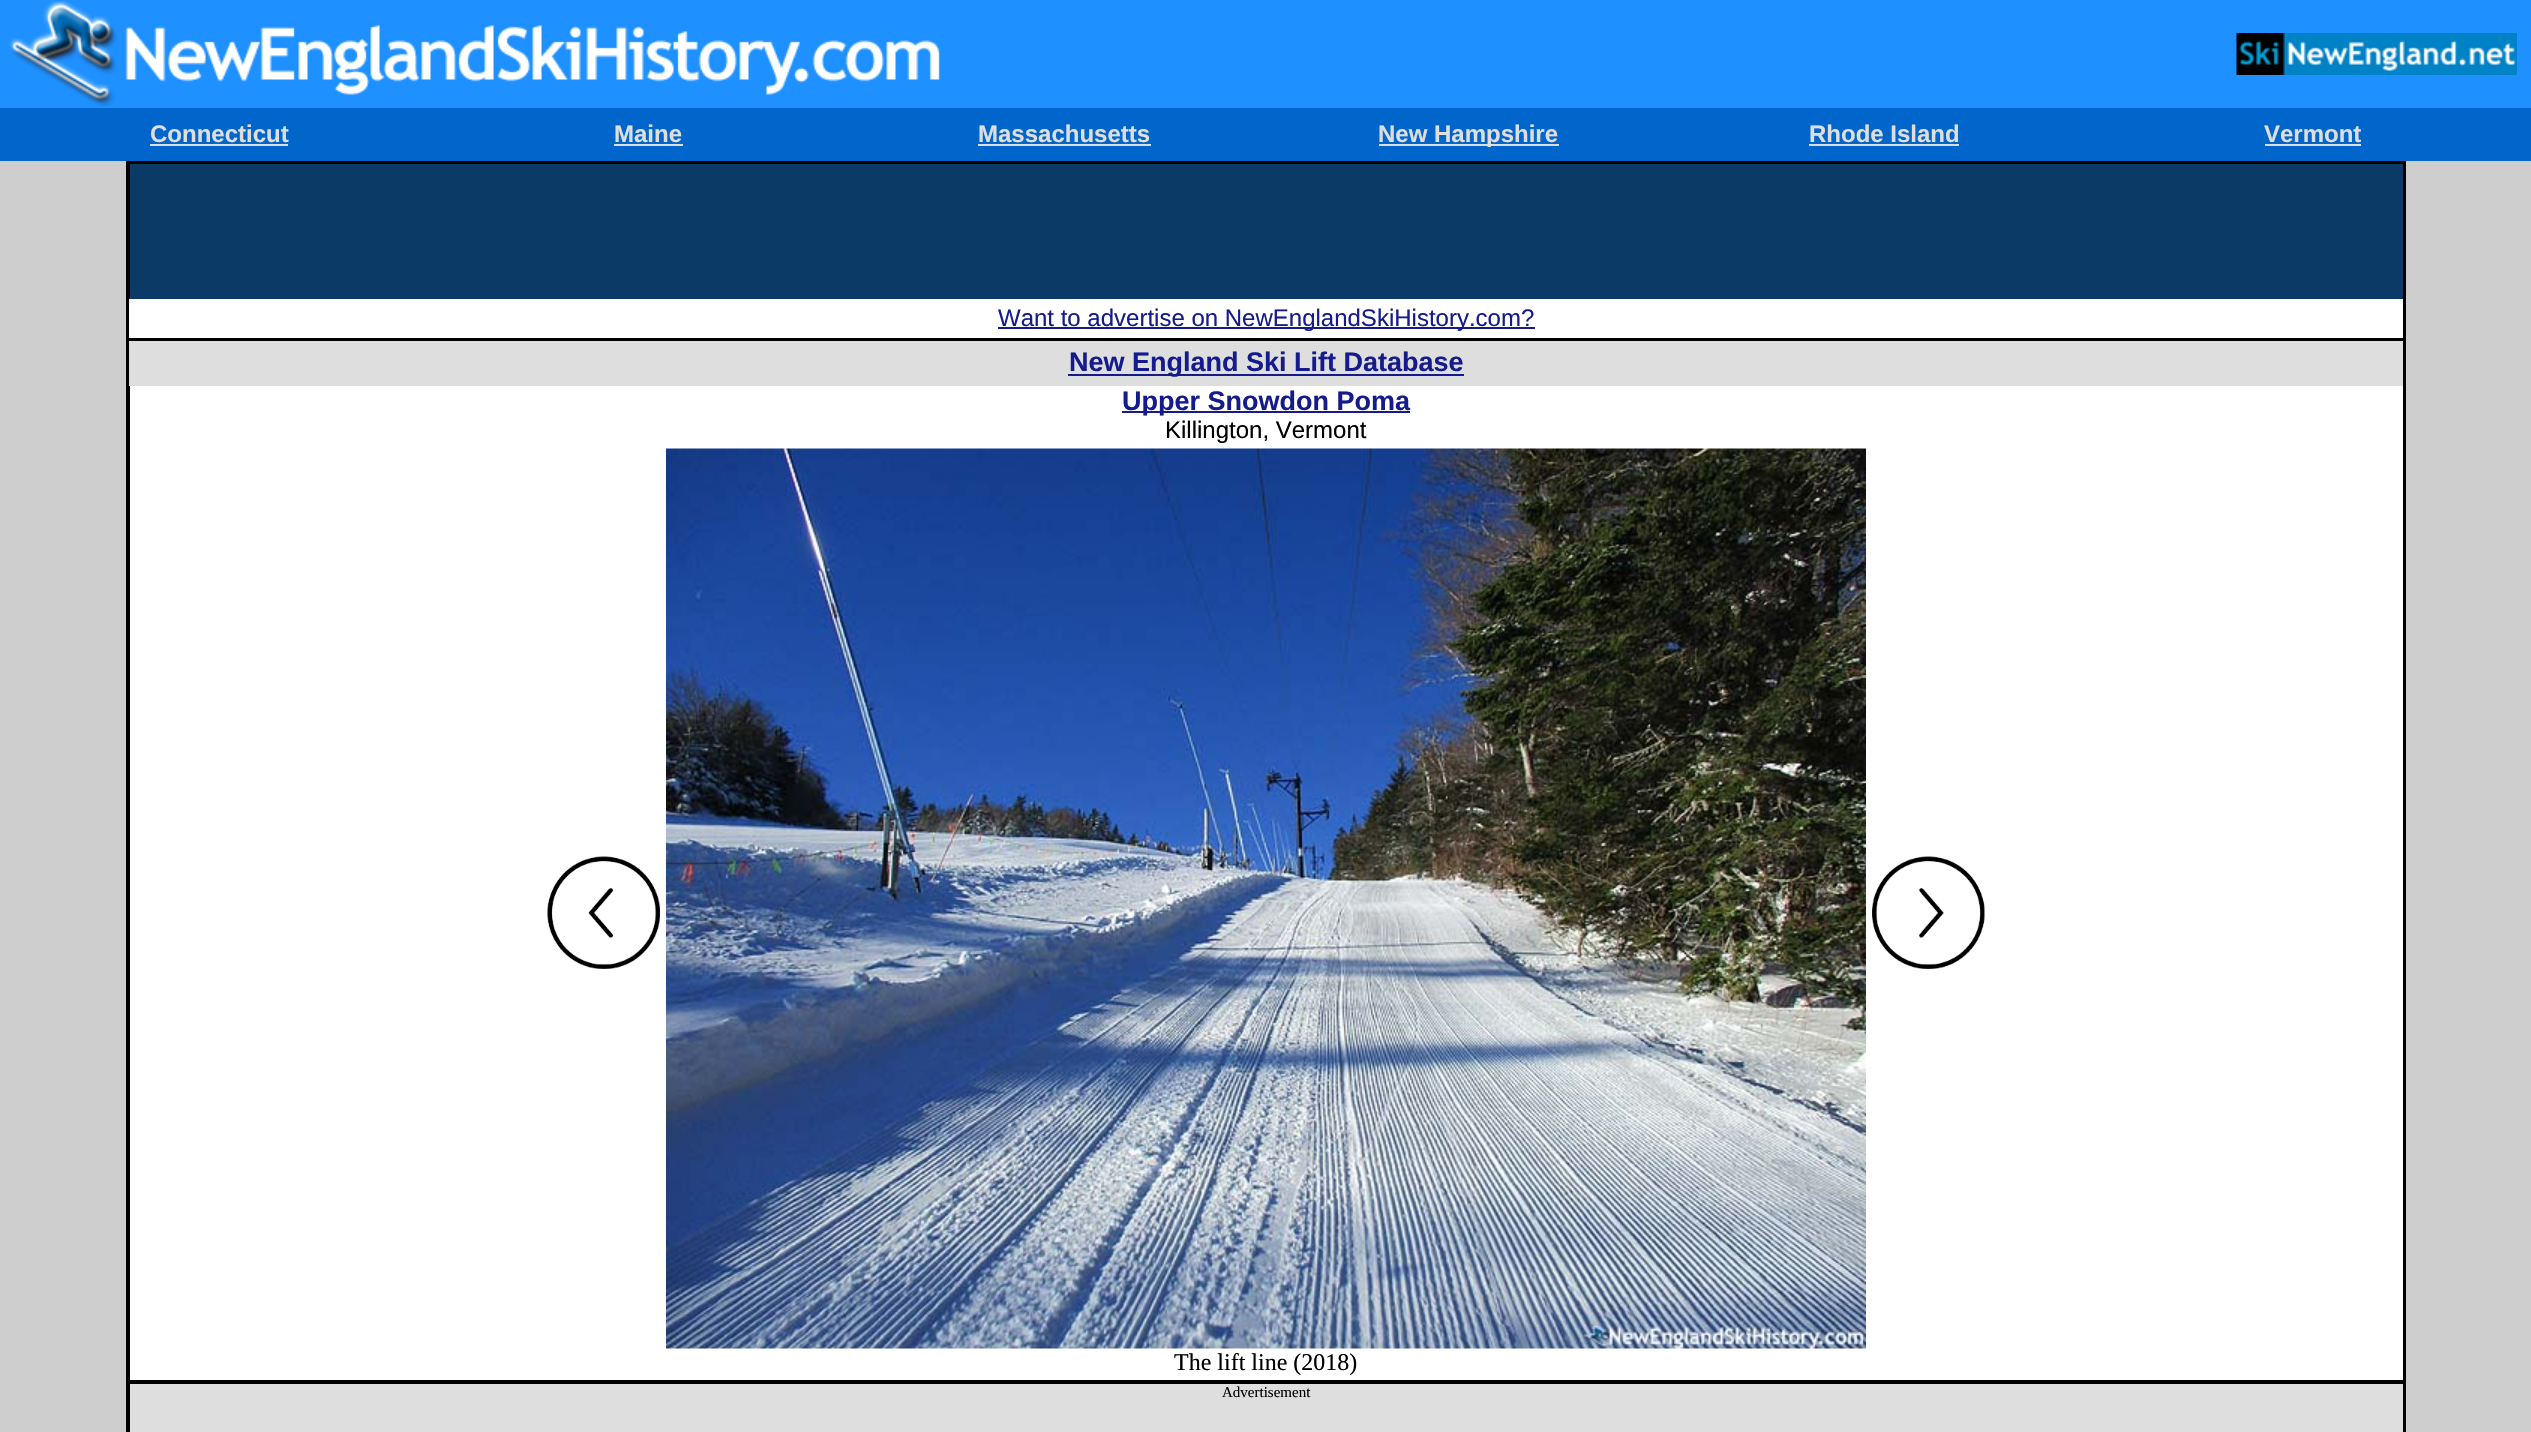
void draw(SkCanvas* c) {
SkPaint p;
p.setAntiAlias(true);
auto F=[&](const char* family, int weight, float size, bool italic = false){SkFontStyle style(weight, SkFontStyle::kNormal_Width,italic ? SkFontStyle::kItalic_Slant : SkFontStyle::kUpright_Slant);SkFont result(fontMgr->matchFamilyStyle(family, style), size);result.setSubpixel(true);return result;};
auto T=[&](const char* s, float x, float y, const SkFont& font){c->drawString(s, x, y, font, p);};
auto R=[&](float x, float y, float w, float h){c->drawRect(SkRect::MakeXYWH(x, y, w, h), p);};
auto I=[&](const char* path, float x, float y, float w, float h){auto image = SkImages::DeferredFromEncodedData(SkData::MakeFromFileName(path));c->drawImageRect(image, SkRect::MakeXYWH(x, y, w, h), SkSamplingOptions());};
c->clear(0xffcecece);
p.setColor(0xff1e90ff);
R(0,0,2531,108);
I("1.png",9,1,931,105);
I("2.png",2236,33,281,42);
p.setColor(0xff0066cc);
R(0,108,2531,53);
auto f1 = F("Liberation Sans",700,24);
p.setColor(0xffdedede);
T("Connecticut",150,142,f1);
R(150,144,138,2);
T("Maine",614,142,f1);
R(614,144,69,2);
T("Massachusetts",978,142,f1);
R(978,144,173,2);
R(1379,144,180,2);
T("New Hampshire",1378,142,f1);
T("Rhode Island",1809,142,f1);
R(1809,144,150,2);
T("Vermont",2264,142,f1);
R(2265,144,96,2);
p.setStroke(true);
p.setStrokeWidth(2);
p.setColor(0xff000000);
c->drawRect(SkRect::MakeXYWH(127,162,2278,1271),p);
p.setStroke(false);
p.setColor(0xff0c3a66);
R(130,164,2273,135);
p.setStroke(true);
p.setColor(0xff000000);
c->drawRect(SkRect::MakeXYWH(129,163,2275,175),p);
p.setStroke(false);
p.setColor(0xffffffff);
R(129,299,2274,39);
p.setColor(0xff151b8d);
R(998,327,537,2);
auto f2 = F("Liberation Sans",400,24);
T("Want to advertise on NewEnglandSkiHistory.com?",998,326,f2);
p.setColor(0xffffffff);
R(130,386,2273,994);
p.setStroke(true);
p.setColor(0xff000000);
c->drawRect(SkRect::MakeXYWH(129,340,2275,1041),p);
p.setStroke(false);
p.setColor(0xffdedede);
R(129,341,2274,45);
p.setColor(0xff151b8d);
R(1068,374,396,2);
auto f3 = F("Liberation Sans",700,27);
T("New England Ski Lift Database",1069,371,f3);
R(1122,411,288,2);
T("Upper Snowdon Poma",1122,410,f3);
p.setColor(0xff000000);
T("Killington, Vermont",1165,438,f2);
I("3.png",547,856,113,113);
I("4.png",1872,856,113,113);
I("5.png",666,448,1200,901);
auto f4 = F("Liberation Serif",400,24);
T("The lift line (2018)",1174,1370,f4);
p.setColor(0xffdedede);
c->drawRect(SkRect::MakeXYWH(129,1383,2275,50),p);
p.setStroke(true);
p.setColor(0xff000000);
c->drawRect(SkRect::MakeXYWH(129,1383,2275,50),p);
auto f5 = F("Liberation Serif",400,15);
p.setStroke(false);
T("Advertisement",1222,1397,f5);
}
